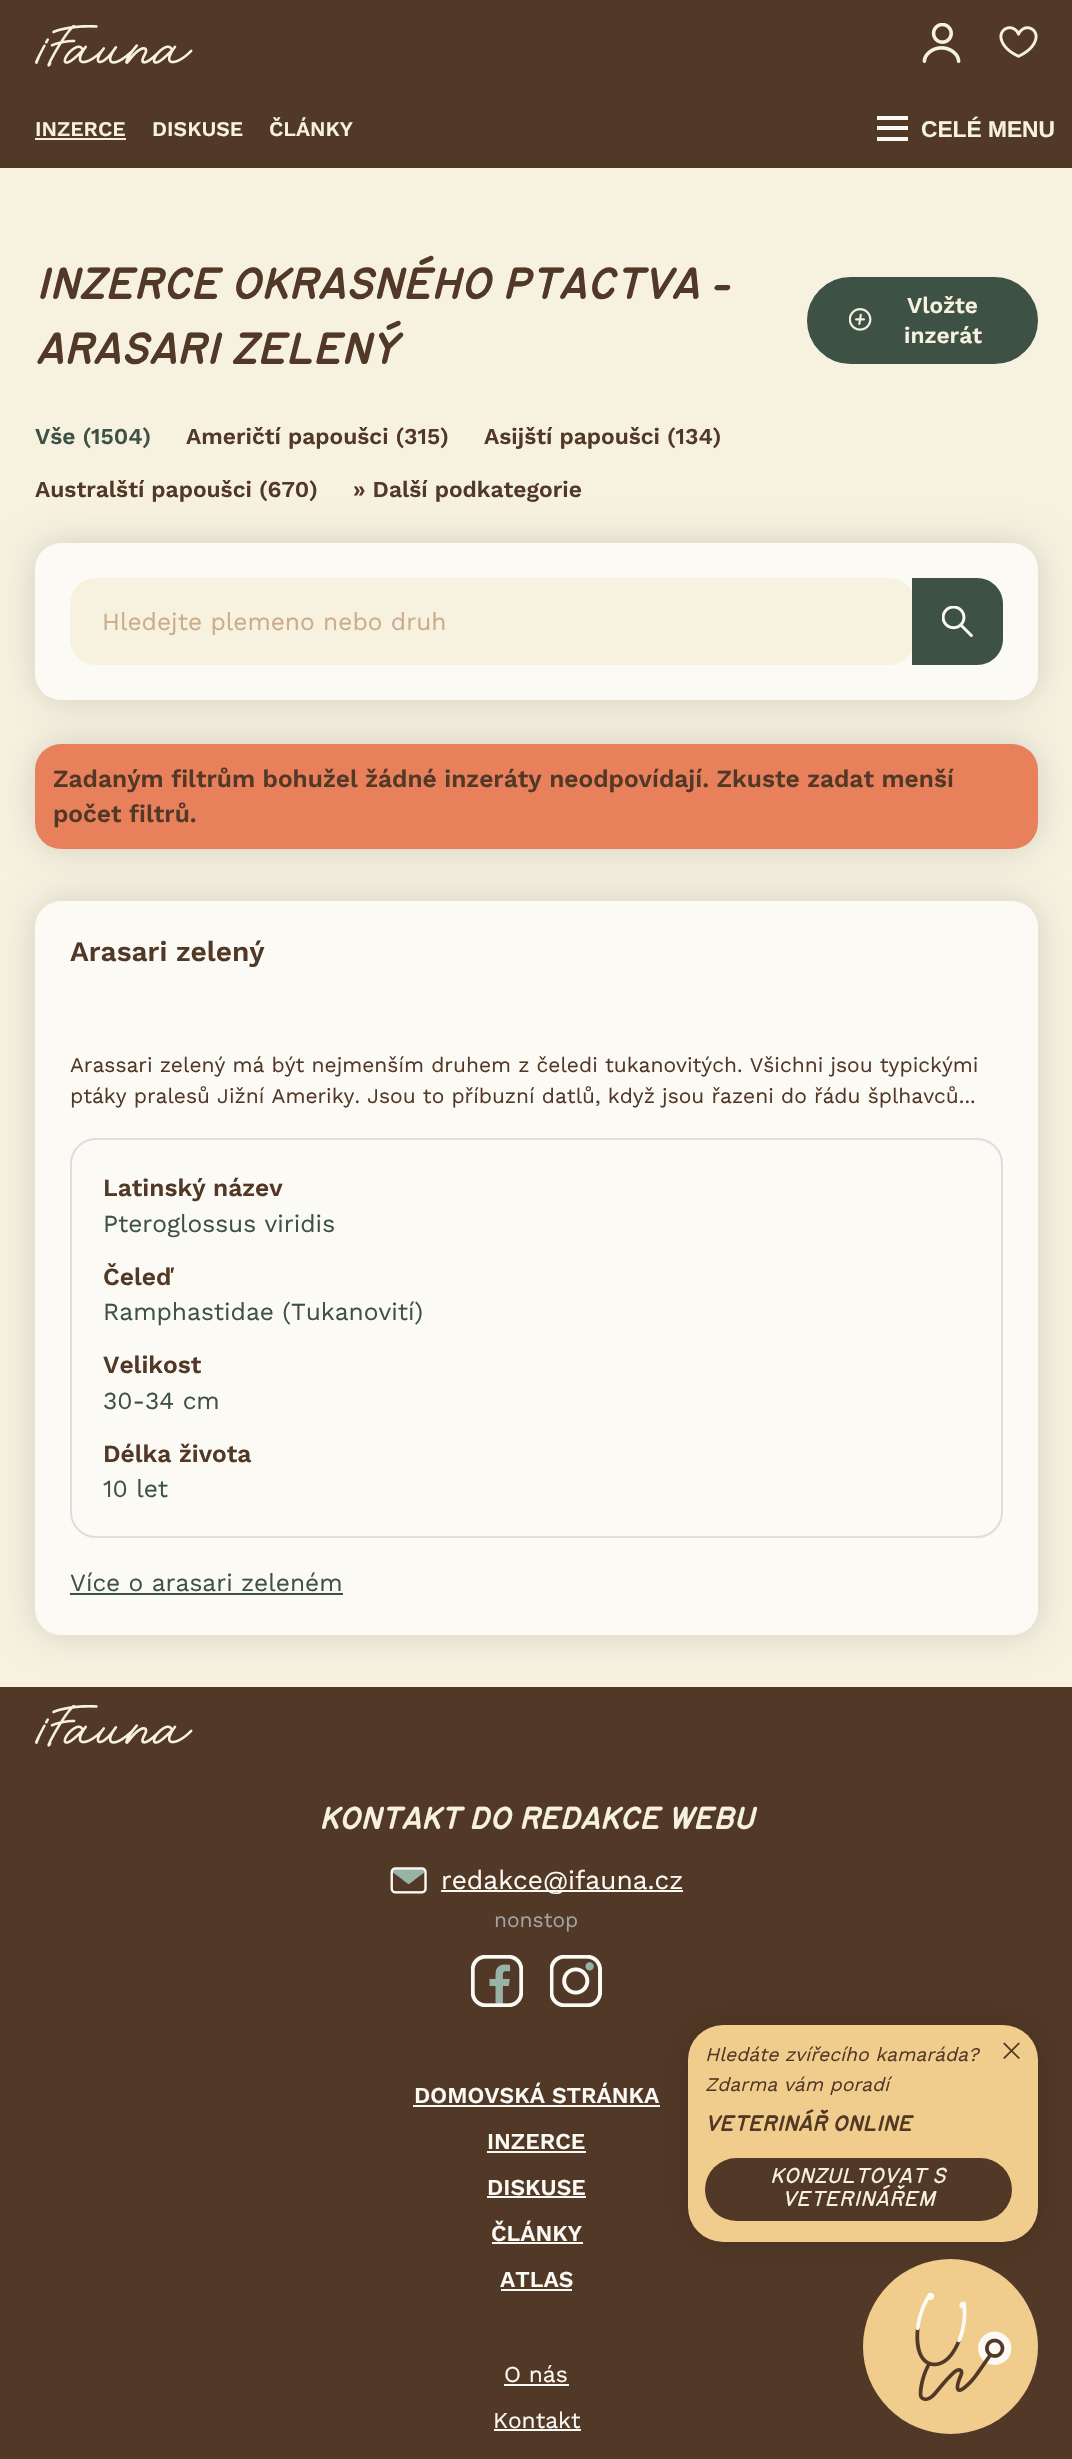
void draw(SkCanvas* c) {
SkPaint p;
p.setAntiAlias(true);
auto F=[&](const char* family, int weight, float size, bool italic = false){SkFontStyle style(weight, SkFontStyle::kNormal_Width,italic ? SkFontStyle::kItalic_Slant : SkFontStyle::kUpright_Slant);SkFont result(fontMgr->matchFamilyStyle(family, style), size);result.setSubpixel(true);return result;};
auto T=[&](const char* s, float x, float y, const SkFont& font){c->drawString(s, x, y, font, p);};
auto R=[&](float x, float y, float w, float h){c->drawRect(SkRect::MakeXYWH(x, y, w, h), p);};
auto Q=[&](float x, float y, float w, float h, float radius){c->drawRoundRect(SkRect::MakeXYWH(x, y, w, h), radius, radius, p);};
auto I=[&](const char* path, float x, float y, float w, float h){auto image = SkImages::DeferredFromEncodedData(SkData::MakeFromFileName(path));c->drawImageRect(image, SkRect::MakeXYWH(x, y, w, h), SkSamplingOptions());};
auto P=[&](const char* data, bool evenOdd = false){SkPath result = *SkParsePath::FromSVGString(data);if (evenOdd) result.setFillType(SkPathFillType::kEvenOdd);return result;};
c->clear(0xfff7f2e0);
p.setColor(0xff523826);
R(0,0,1072,168);
I("1.png",35,25,158,42);
I("2.png",922,23,39,40);
I("3.png",999,26,39,32);
auto f1 = F("Work Sans",600,21);
p.setColor(0xfff7f2e0);
T("INZERCE",35,136,f1);
R(35,138,91,2);
T("DISKUSE",152,136,f1);
T("ČLÁNKY",269,136,f1);
p.setColor(0xfffcfaf5);
R(877,116,31,4);
R(877,126,31,4);
R(877,137,31,4);
auto f2 = F("Liberation Sans",700,22.75);
p.setColor(0xfff7f2e0);
T("CELÉ MENU",921,137,f2);
auto f3 = F("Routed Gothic",700,42,true);
p.setColor(0xff523826);
T("INZERCE OKRASNÉHO PTACTVA -",35,299,f3);
T("ARASARI ZELENÝ",35,364,f3);
p.setColor(0xff3d5245);
c->drawRoundRect(SkRect::MakeXYWH(809,279,227,83),41.5,41.5,p);
p.setStroke(true);
p.setStrokeWidth(4);
c->drawRoundRect(SkRect::MakeXYWH(809,279,227,83),41.5,41.5,p);
auto f4 = F("Work Sans",600,22.75);
p.setStroke(false);
p.setColor(0xfff7f2e0);
T("Vložte",907,313,f4);
I("4.png",849,308,23,23);
T("inzerát",904,343,f4);
p.setColor(0xff3d5245);
T("Vše (1504)",35,444,f4);
p.setColor(0xff523826);
T("Američtí papoušci (315)",186,444,f4);
T("Asijští papoušci (134)",484,444,f4);
T("Australští papoušci (670)",35,497,f4);
T("» Další podkategorie",353,497,f4);
p.setColor(0x26000000);
p.setMaskFilter(SkMaskFilter::MakeBlur(kNormal_SkBlurStyle, 17.5));
c->drawRoundRect(SkRect::MakeXYWH(35,744,1003,105),26,26,p);
p.setMaskFilter(nullptr);
p.setColor(0xffe8805c);
Q(35,744,1003,105,26);
p.setColor(0x26000000);
p.setMaskFilter(SkMaskFilter::MakeBlur(kNormal_SkBlurStyle, 17.5));
c->drawRoundRect(SkRect::MakeXYWH(35,543,1003,157),26,26,p);
p.setMaskFilter(nullptr);
p.setColor(0xfffcfaf5);
Q(35,543,1003,157,26);
p.setColor(0xfff7f2e0);
Q(70,578,845,87,26);
c->save();
c->clipRect(SkRect::MakeXYWH(102,607,789,28));
auto f5 = F("Work Sans",400,24.5);
p.setColor(0xffccab8a);
T("Hledejte plemeno nebo druh",102,630,f5);
c->restore();
p.setColor(0xff3d5245);
c->drawPath(P("M912 578h65c14.5 0 26 11.5 26 26v35c0 14.5-11.5 26-26 26h-65z"),p);
I("5.png",942,606,31,31);
auto f6 = F("Work Sans",600,24.5);
p.setColor(0xff523826);
T("Zadaným filtrům bohužel žádné inzeráty neodpovídají. Zkuste zadat menší",53,787,f6);
T("počet filtrů.",53,822,f6);
p.setColor(0x26000000);
p.setMaskFilter(SkMaskFilter::MakeBlur(kNormal_SkBlurStyle, 17.5));
c->drawRoundRect(SkRect::MakeXYWH(35,901,1003,734),26,26,p);
p.setMaskFilter(nullptr);
p.setColor(0xfffcfaf5);
Q(35,901,1003,734,26);
auto f7 = F("Work Sans",600,28);
p.setColor(0xff523826);
T("Arasari zelený",70,961,f7);
auto f8 = F("Work Sans",400,21);
T("Arassari zelený má být nejmenším druhem z čeledi tukanovitých. Všichni jsou typickými",70,1072,f8);
T("ptáky pralesů Jižní Ameriky. Jsou to příbuzní datlů, když jsou řazeni do řádu šplhavců...",70,1103,f8);
p.setStroke(true);
p.setStrokeWidth(2);
p.setColor(0xffdddddd);
c->drawRoundRect(SkRect::MakeXYWH(71,1139,931,398),25,25,p);
p.setStroke(false);
p.setColor(0xff523826);
T("Latinský název",103,1196,f6);
p.setColor(0xff3d5245);
T("Pteroglossus viridis",103,1232,f5);
p.setColor(0xff523826);
T("Čeleď",103,1285,f6);
p.setColor(0xff3d5245);
T("Ramphastidae (Tukanovití)",103,1320,f5);
p.setColor(0xff523826);
T("Velikost",103,1373,f6);
p.setColor(0xff3d5245);
T("30-34 cm",103,1409,f5);
p.setColor(0xff523826);
T("Délka života",103,1462,f6);
p.setColor(0xff3d5245);
T("10 let",103,1497,f5);
T("Více o arasari zeleném",70,1591,f5);
R(70,1593,273,2);
p.setColor(0xff523826);
R(0,1687,1072,772);
I("1.png",35,1705,158,42);
auto f9 = F("Routed Gothic",700,29.75,true);
p.setColor(0xfff7f2e0);
T("KONTAKT DO REDAKCE WEBU",319,1829,f9);
I("6.png",390,1867,37,27);
p.setColor(0xfffcfaf5);
R(441,1890,242,2);
auto f10 = F("Work Sans",400,26.25);
T("redakce@ifauna.cz",441,1889,f10);
p.setColor(0xffa3a3a3);
T("nonstop",494,1927,f8);
I("7.png",471,1955,52,52);
I("8.png",550,1955,52,52);
p.setColor(0xfffcfaf5);
T("DOMOVSKÁ STRÁNKA",414,2103,f4);
R(413,2105,247,2);
T("INZERCE",487,2149,f4);
R(487,2151,99,2);
T("DISKUSE",487,2195,f4);
R(487,2196,99,2);
T("ČLÁNKY",491,2241,f4);
R(492,2242,91,2);
T("ATLAS",500,2287,f4);
R(501,2289,71,2);
auto f11 = F("Work Sans",400,22.75);
T("O nás",504,2382,f11);
R(504,2384,65,2);
T("Kontakt",493,2428,f11);
R(494,2429,87,2);
p.setColor(0x26000000);
p.setMaskFilter(SkMaskFilter::MakeBlur(kNormal_SkBlurStyle, 17.5));
c->drawRoundRect(SkRect::MakeXYWH(688,2025,350,217),35,35,p);
p.setMaskFilter(nullptr);
p.setColor(0xfff0cc8d);
Q(688,2025,350,217,35);
auto f12 = F("Work Sans",400,19.25,true);
p.setColor(0xff523826);
T("Hledáte zvířecího kamaráda?",705,2061,f12);
T("Zdarma vám poradí",705,2091,f12);
auto f13 = F("Routed Gothic",700,21,true);
T("VETERINÁŘ ONLINE",705,2131,f13);
Q(705,2158,307,63,31.5);
auto f14 = F("Routed Gothic",400,21,true);
p.setColor(0xfff7f2e0);
T("KONZULTOVAT S",770,2183,f14);
T("VETERINÁŘEM",782,2206,f14);
p.setColor(0xff523826);
c->drawPath(P("M1004.5 2042.5l15.5 15.5l-1.5 1l-15.5-15.5z"),p);
c->drawPath(P("M1003 2058l15.5-15.5l1.5 1l-15.5 15.5z"),p);
p.setColor(0xfff0cc8d);
c->drawCircle(950.5,2346.5,87.5,p);
I("9.png",915,2293,97,108);
}
